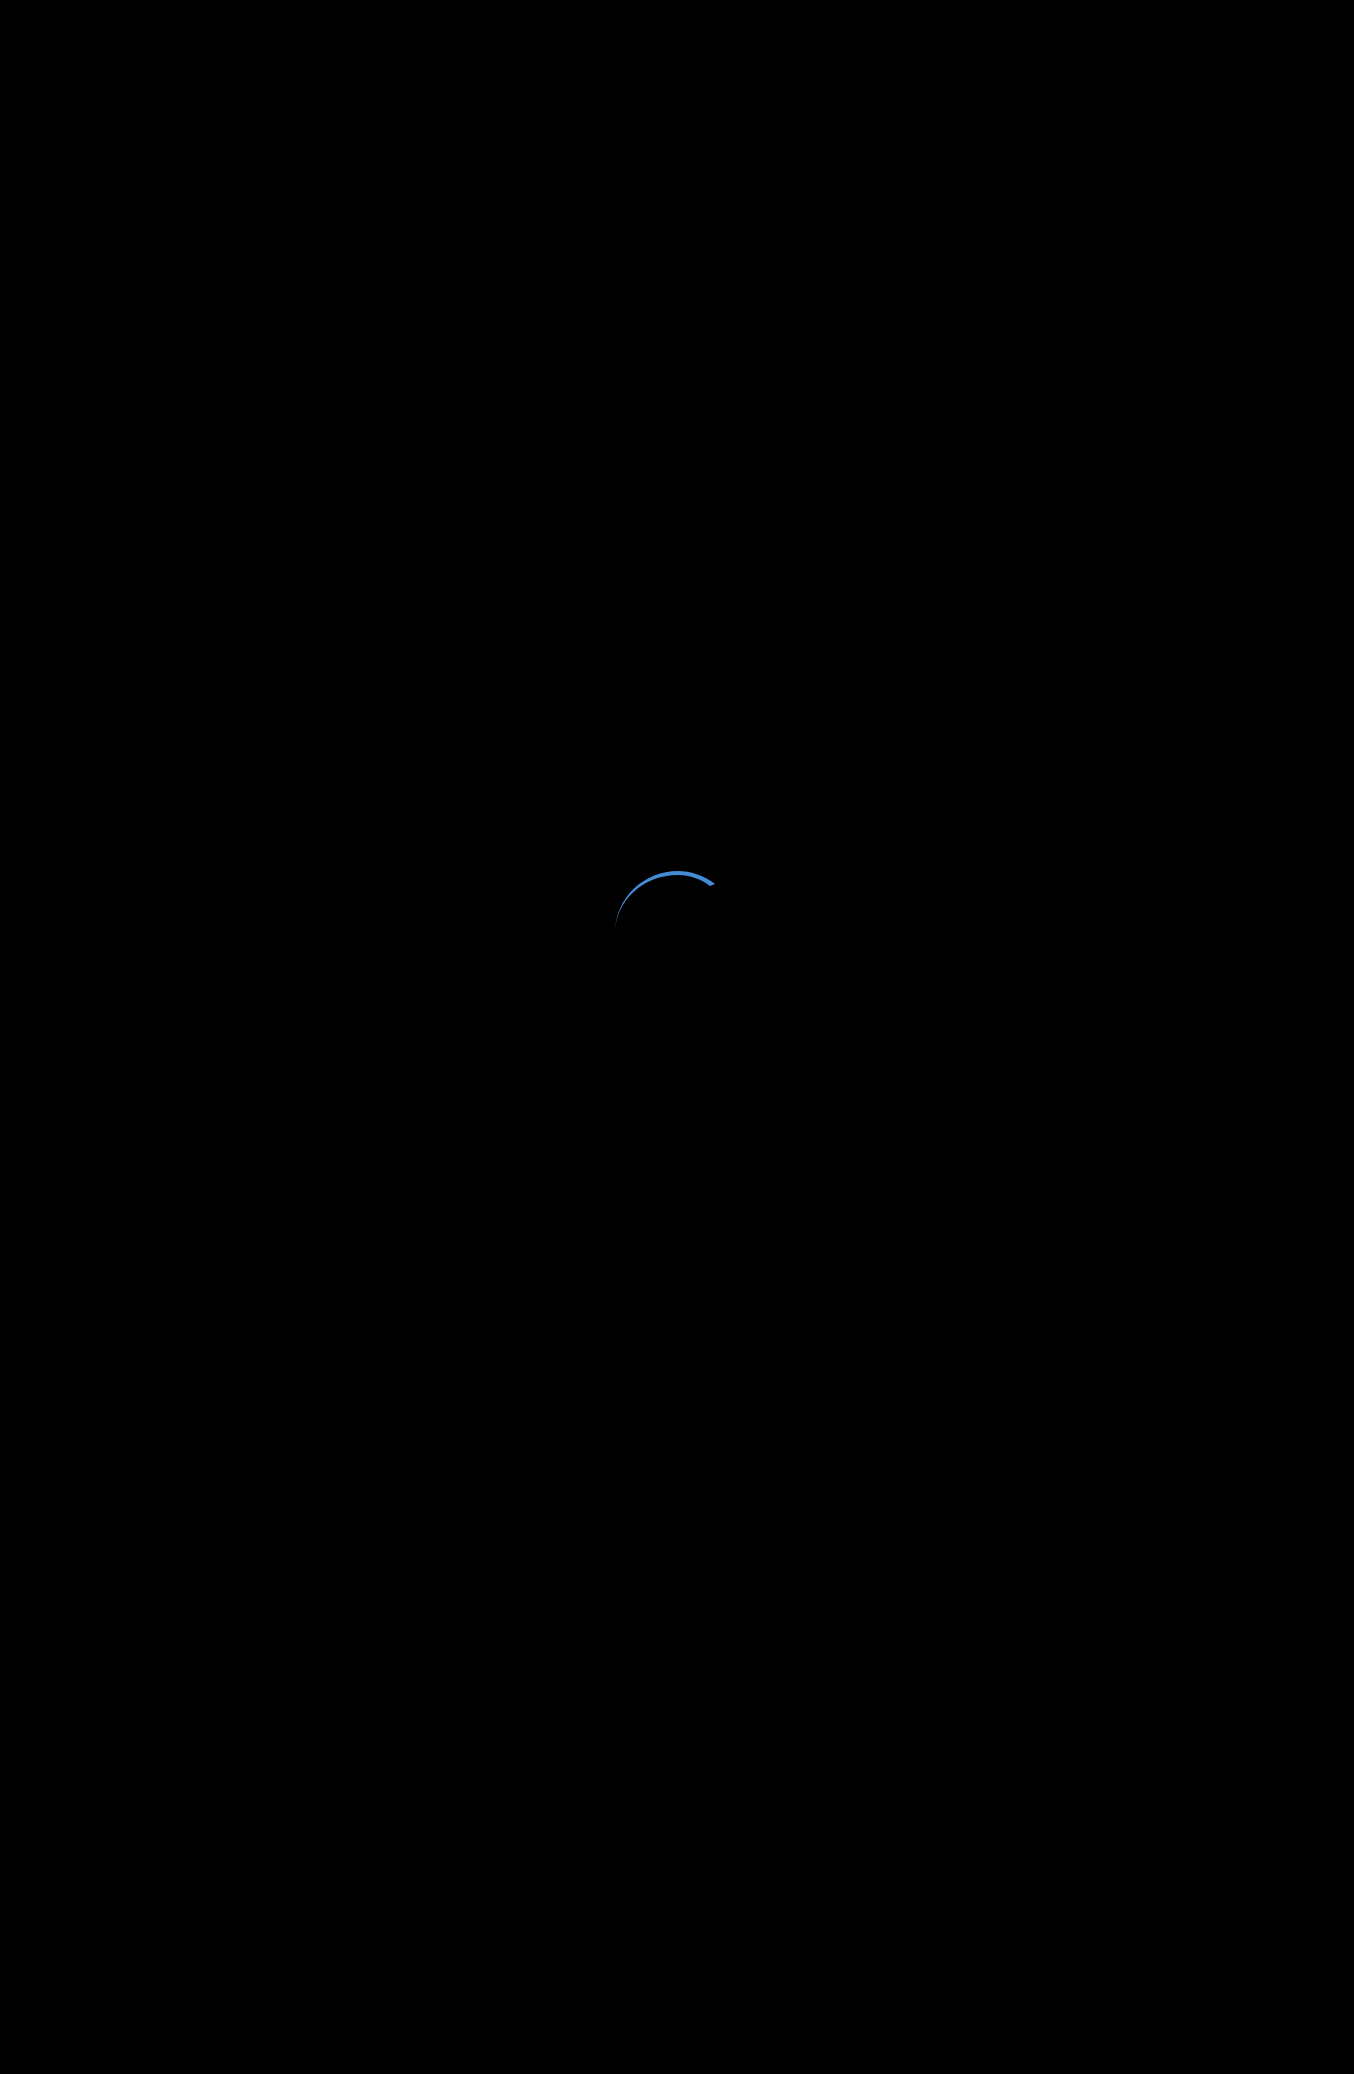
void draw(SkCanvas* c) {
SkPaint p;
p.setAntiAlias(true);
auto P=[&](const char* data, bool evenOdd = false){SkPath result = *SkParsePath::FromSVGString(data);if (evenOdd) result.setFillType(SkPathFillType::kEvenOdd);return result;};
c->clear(0xff000000);
p.setColor(0xff448bd6);
c->drawPath(P("M678 875c-35 0-63 26-63 59c0-53 60-81 100-50l-5 2c-9-7-20-11-32-11z"),p);
}
